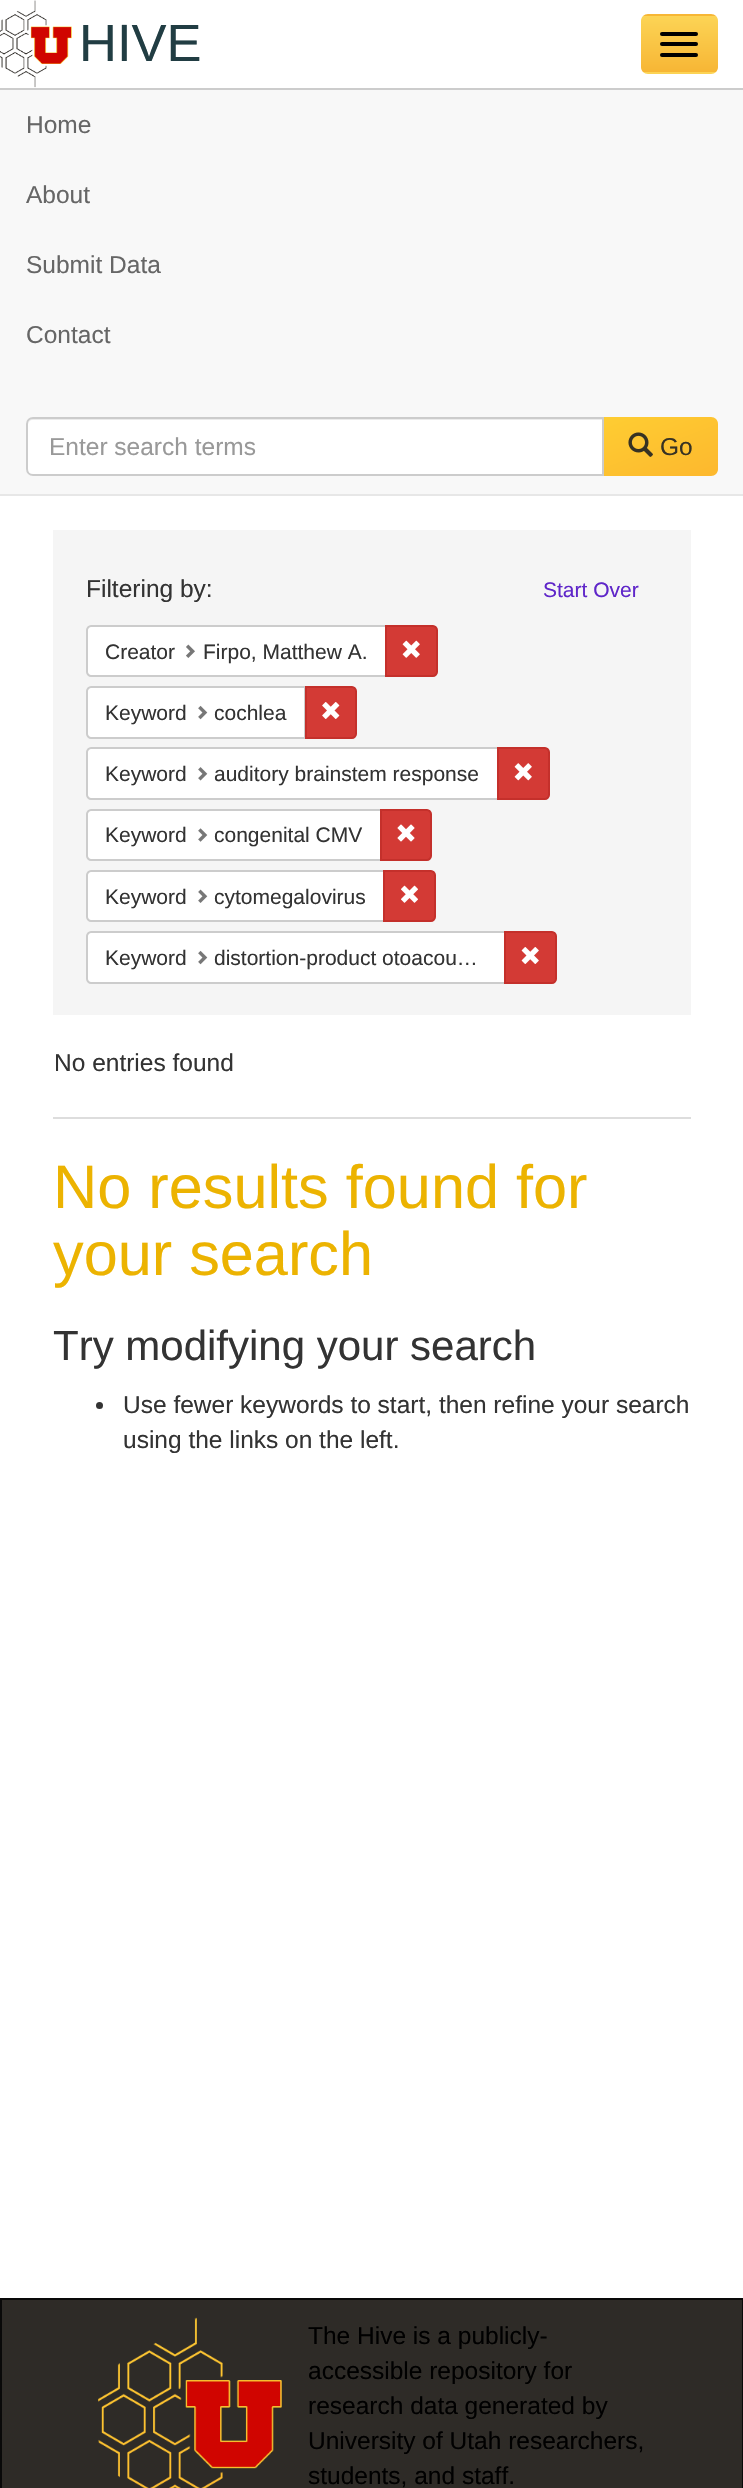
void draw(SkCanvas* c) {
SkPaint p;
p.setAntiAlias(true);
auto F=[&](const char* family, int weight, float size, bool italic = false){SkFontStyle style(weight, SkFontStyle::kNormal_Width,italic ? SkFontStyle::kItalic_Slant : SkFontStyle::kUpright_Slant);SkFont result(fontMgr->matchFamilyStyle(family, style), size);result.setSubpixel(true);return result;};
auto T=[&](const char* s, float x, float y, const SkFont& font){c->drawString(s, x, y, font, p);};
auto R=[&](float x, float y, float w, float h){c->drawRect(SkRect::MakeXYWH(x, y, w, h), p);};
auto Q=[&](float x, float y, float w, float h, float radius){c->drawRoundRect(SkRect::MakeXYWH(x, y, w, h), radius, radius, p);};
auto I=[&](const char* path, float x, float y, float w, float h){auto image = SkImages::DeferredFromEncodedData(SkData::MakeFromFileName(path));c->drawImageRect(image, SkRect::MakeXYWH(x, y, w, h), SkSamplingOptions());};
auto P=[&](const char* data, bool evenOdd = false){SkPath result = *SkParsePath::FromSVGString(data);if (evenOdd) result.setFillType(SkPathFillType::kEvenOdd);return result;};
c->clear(0xffffffff);
p.setColor(0xffcccccc);
R(0,88,743,2);
I("1.png",0,0,72,88);
auto f1 = F("Liberation Sans",400,52.5);
p.setColor(0xff213d43);
T("HIVE",79,61,f1);
c->save();
c->clipPath(P("M648 14h63c4 0 7 3 7 7v46c0 4-3 7-7 7h-63c-4 0-7-3-7-7v-46c0-4 3-7 7-7z"),true);
{
const SkColor colors[] = {0xfffcd455,0xfff7b635};
const float stops[] = {0,1};
const SkPoint ends[] = {{679,-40}, {679,16}};
p.setShader(SkGradientShader::MakeLinear(ends, colors, stops, 2, SkTileMode::kClamp));
p.setAlpha(255);
}
R(641,14,77,2);
{
const SkColor colors[] = {0xfffcd455,0xfff7b635};
const float stops[] = {0,1};
const SkPoint ends[] = {{679,16}, {679,72}};
p.setShader(SkGradientShader::MakeLinear(ends, colors, stops, 2, SkTileMode::kClamp));
p.setAlpha(255);
}
R(641,16,77,56);
{
const SkColor colors[] = {0xfffcd455,0xfff7b635};
const float stops[] = {0,1};
const SkPoint ends[] = {{679,72}, {679,128}};
p.setShader(SkGradientShader::MakeLinear(ends, colors, stops, 2, SkTileMode::kClamp));
p.setAlpha(255);
}
R(641,72,77,2);
c->restore();
p.setShader(nullptr);
p.setColor(0xff000000);
Q(660,32,38,4,2);
Q(660,42,38,4,2);
Q(660,53,38,4,2);
p.setColor(0xfff8f8f8);
R(0,90,743,404);
p.setColor(0xffe7e7e7);
R(0,494,743,2);
auto f2 = F("Liberation Sans",400,24.5);
p.setColor(0xff666666);
T("Home",26,133,f2);
T("About",26,203,f2);
T("Submit Data",26,273,f2);
T("Contact",26,343,f2);
p.setColor(0xffffffff);
c->drawPath(P("M33 417h571v59h-571c-4 0-7-3-7-7v-45c0-4 3-7 7-7z"),p);
p.setColor(0xffececec);
c->drawPath(P("M33 420h569v-2h-569c-4 0-5 4-5 7c0-3 2-5 5-5z"),p);
p.setStroke(true);
p.setStrokeWidth(2);
p.setColor(0xffcccccc);
c->drawPath(P("M33 418h570v57h-570c-3.5 0-6-2.5-6-6v-45c0-3.5 2.5-6 6-6z"),p);
p.setStroke(false);
p.setColor(0xff999999);
T("Enter search terms",49,455,f2);
{
const SkColor colors[] = {0xfffecd32,0xfffdb82e};
const float stops[] = {0,1};
const SkPoint ends[] = {{643,401}, {678,491}};
p.setShader(SkGradientShader::MakeLinear(ends, colors, stops, 2, SkTileMode::kClamp));
p.setAlpha(255);
}
c->drawPath(P("M604 417h107c4 0 7 3 7 7v45c0 4-3 7-7 7h-107z"),p);
I("2.png",628,432,25,25);
p.setShader(nullptr);
p.setColor(0xff373223);
T("Go",660,455,f2);
p.setColor(0xfff5f5f5);
R(53,530,638,485);
p.setColor(0xff333333);
T("Filtering by:",86,597,f2);
auto f3 = F("Liberation Sans",400,21);
p.setColor(0xff5f26c9);
T("Start Over",543,597,f3);
p.setColor(0xffffffff);
c->drawPath(P("M91 626h295v50h-295c-2 0-4-2-4-4v-42c0-2 2-4 4-4z"),p);
p.setStroke(true);
p.setColor(0xffcccccc);
c->drawPath(P("M91 626h295v50h-295c-2 0-4-2-4-4v-42c0-2 2-4 4-4z"),p);
p.setStroke(false);
p.setColor(0xff333333);
T("Creator",105,659,f3);
I("3.png",186,644,9,14);
T("Firpo, Matthew A.",203,659,f3);
p.setColor(0xffd33a35);
c->drawPath(P("M386 626h47c2 0 4 2 4 4v42c0 2-2 4-4 4h-47z"),p);
p.setStroke(true);
p.setColor(0xffc4302b);
c->drawPath(P("M386 626h47c2 0 4 2 4 4v42c0 2-2 4-4 4h-47z"),p);
I("4.png",402,640,18,18);
p.setStroke(false);
p.setColor(0xffffffff);
c->drawPath(P("M91 687h214v51h-214c-2 0-4-2-4-4v-43c0-2 2-4 4-4z"),p);
p.setStroke(true);
p.setColor(0xffcccccc);
c->drawPath(P("M91 687h214v51h-214c-2 0-4-2-4-4v-43c0-2 2-4 4-4z"),p);
p.setStroke(false);
p.setColor(0xff333333);
T("Keyword",105,720,f3);
I("5.png",198,705,10,15);
T("cochlea",214,720,f3);
p.setColor(0xffd33a35);
c->drawPath(P("M306 687h46c2 0 4 2 4 4v43c0 2-2 4-4 4h-46z"),p);
p.setStroke(true);
p.setColor(0xffc4302b);
c->drawPath(P("M306 687h46c2 0 4 2 4 4v43c0 2-2 4-4 4h-46z"),p);
I("6.png",322,702,18,17);
p.setStroke(false);
p.setColor(0xffffffff);
c->drawPath(P("M91 748h407v51h-407c-2 0-4-2-4-4v-43c0-2 2-4 4-4z"),p);
p.setStroke(true);
p.setColor(0xffcccccc);
c->drawPath(P("M91 748h407v51h-407c-2 0-4-2-4-4v-43c0-2 2-4 4-4z"),p);
p.setStroke(false);
p.setColor(0xff333333);
T("Keyword",105,781,f3);
I("7.png",198,767,10,14);
T("auditory brainstem response",214,781,f3);
p.setColor(0xffd33a35);
c->drawPath(P("M498 748h47c2 0 4 2 4 4v43c0 2-2 4-4 4h-47z"),p);
p.setStroke(true);
p.setColor(0xffc4302b);
c->drawPath(P("M498 748h47c2 0 4 2 4 4v43c0 2-2 4-4 4h-47z"),p);
I("8.png",514,763,18,18);
p.setStroke(false);
p.setColor(0xffffffff);
c->drawPath(P("M91 810h290v50h-290c-2 0-4-2-4-4v-42c0-2 2-4 4-4z"),p);
p.setStroke(true);
p.setColor(0xffcccccc);
c->drawPath(P("M91 810h290v50h-290c-2 0-4-2-4-4v-42c0-2 2-4 4-4z"),p);
p.setStroke(false);
p.setColor(0xff333333);
T("Keyword",105,842,f3);
I("9.png",198,828,10,14);
T("congenital CMV",214,842,f3);
p.setColor(0xffd33a35);
c->drawPath(P("M381 810h46c2 0 4 2 4 4v42c0 2-2 4-4 4h-46z"),p);
p.setStroke(true);
p.setColor(0xffc4302b);
c->drawPath(P("M381 810h46c2 0 4 2 4 4v42c0 2-2 4-4 4h-46z"),p);
I("10.png",397,824,18,18);
p.setStroke(false);
p.setColor(0xffffffff);
c->drawPath(P("M91 871h293v50h-293c-2 0-4-2-4-4v-42c0-2 2-4 4-4z"),p);
p.setStroke(true);
p.setColor(0xffcccccc);
c->drawPath(P("M91 871h293v50h-293c-2 0-4-2-4-4v-42c0-2 2-4 4-4z"),p);
p.setStroke(false);
p.setColor(0xff333333);
T("Keyword",105,904,f3);
I("11.png",198,889,10,14);
T("cytomegalovirus",214,904,f3);
p.setColor(0xffd33a35);
c->drawPath(P("M384 871h47c2 0 4 2 4 4v42c0 2-2 4-4 4h-47z"),p);
p.setStroke(true);
p.setColor(0xffc4302b);
c->drawPath(P("M384 871h47c2 0 4 2 4 4v42c0 2-2 4-4 4h-47z"),p);
I("12.png",401,885,17,18);
p.setStroke(false);
p.setColor(0xffffffff);
c->drawPath(P("M91 932h414v51h-414c-2 0-4-2-4-4v-43c0-2 2-4 4-4z"),p);
p.setStroke(true);
p.setColor(0xffcccccc);
c->drawPath(P("M91 932h414v51h-414c-2 0-4-2-4-4v-43c0-2 2-4 4-4z"),p);
p.setStroke(false);
p.setColor(0xff333333);
T("Keyword",105,965,f3);
I("5.png",198,950,10,15);
T("distortion-product otoacou…",214,965,f3);
p.setColor(0xffd33a35);
c->drawPath(P("M505 932h47c2 0 4 2 4 4v43c0 2-2 4-4 4h-47z"),p);
p.setStroke(true);
p.setColor(0xffc4302b);
c->drawPath(P("M505 932h47c2 0 4 2 4 4v43c0 2-2 4-4 4h-47z"),p);
I("13.png",521,947,18,17);
p.setStroke(false);
p.setColor(0xffdddddd);
R(53,1117,638,2);
p.setColor(0xff333333);
T("No entries found",54,1071,f2);
auto f4 = F("Liberation Sans",400,61.25);
p.setColor(0xffecb301);
T("No results found for",53,1208,f4);
T("your search",53,1275,f4);
auto f5 = F("Liberation Sans",400,42);
p.setColor(0xff333333);
T("Try modifying your search",53,1360,f5);
c->drawCircle(99.5,1405.5,3.5,p);
T("Use fewer keywords to start, then refine your search",123,1413,f2);
T("using the links on the left.",123,1448,f2);
p.setColor(0xff2e2b27);
c->drawRect(SkRect::MakeXYWH(1,2299,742,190),p);
p.setStroke(true);
p.setColor(0xff090909);
c->drawRect(SkRect::MakeXYWH(1,2299,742,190),p);
I("14.png",98,2317,184,171);
p.setStroke(false);
p.setColor(0xff000000);
T("The Hive is a publicly-",308,2344,f2);
T("accessible repository for",308,2379,f2);
T("research data generated by",308,2414,f2);
T("University of Utah researchers,",308,2449,f2);
T("students, and staff.",308,2484,f2);
}
